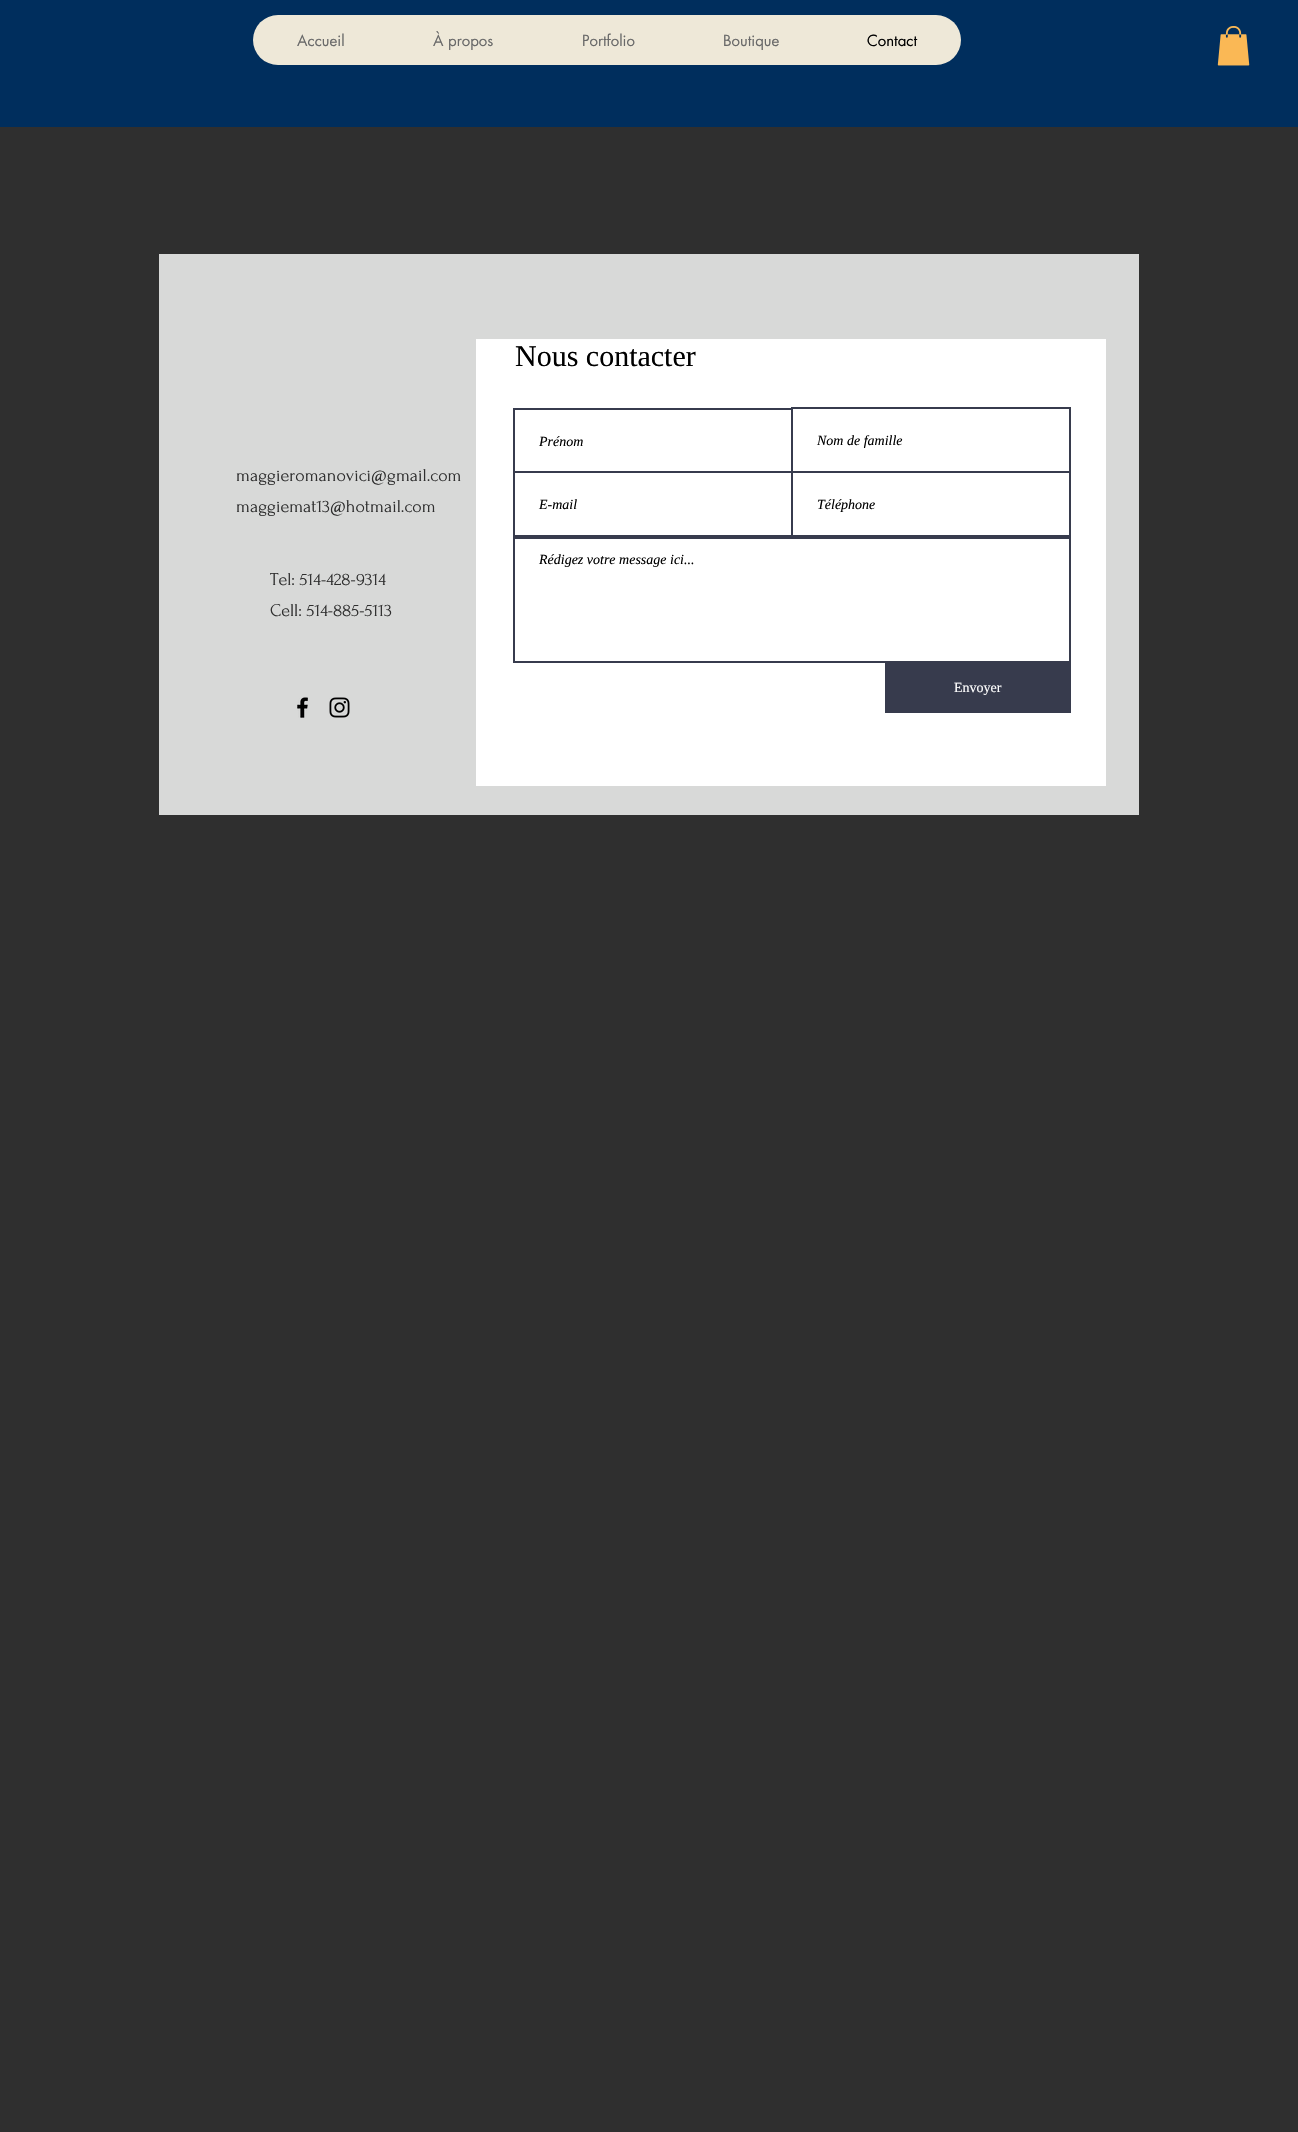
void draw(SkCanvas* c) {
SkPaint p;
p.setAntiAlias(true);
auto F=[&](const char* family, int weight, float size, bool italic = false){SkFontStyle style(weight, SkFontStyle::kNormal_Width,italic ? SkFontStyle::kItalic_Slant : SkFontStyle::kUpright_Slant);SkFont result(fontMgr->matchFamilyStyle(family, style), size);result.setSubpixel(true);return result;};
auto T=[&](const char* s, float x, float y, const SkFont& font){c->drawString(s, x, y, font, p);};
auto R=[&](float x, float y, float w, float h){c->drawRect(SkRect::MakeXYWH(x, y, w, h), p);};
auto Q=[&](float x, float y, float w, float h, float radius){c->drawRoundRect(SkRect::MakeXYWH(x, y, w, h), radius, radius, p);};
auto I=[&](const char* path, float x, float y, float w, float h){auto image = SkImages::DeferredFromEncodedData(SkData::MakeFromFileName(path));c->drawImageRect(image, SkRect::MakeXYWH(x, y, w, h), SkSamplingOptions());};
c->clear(0xff2f2f2f);
p.setColor(0xff002e5d);
R(0,0,1298,127);
p.setColor(0xffeee8d8);
Q(253,15,708,50,25);
auto f1 = F("futura",400,15);
p.setColor(0xff696969);
T("Accueil",297,46,f1);
T("À propos",433,46,f1);
T("Portfolio",582,46,f1);
T("Boutique",723,46,f1);
p.setColor(0xff000000);
T("Contact",867,46,f1);
I("1.png",1217,26,33,40);
p.setColor(0xffd8d9d8);
R(159,254,980,561);
auto f2 = F("Forum",400,18);
p.setColor(0xff2f2f2f);
T("maggieromanovici@gmail.com",236,481,f2);
T("maggiemat13@hotmail.com",236,512,f2);
T("Tel: 514-428-9314",270,585,f2);
T("Cell: 514-885-5113",270,616,f2);
I("2.png",297,697,11,21);
I("3.png",329,697,21,21);
p.setColor(0xffffffff);
R(476,339,630,447);
auto f3 = F("Liberation Serif",400,30);
p.setColor(0xff000000);
T("Nous contacter",515,366,f3);
p.setStroke(true);
p.setStrokeWidth(2);
p.setColor(0xff373b4d);
c->drawRect(SkRect::MakeXYWH(514,409,278,64),p);
auto f4 = F("Liberation Serif",400,14,true);
p.setStroke(false);
p.setColor(0xff000000);
T("Prénom",539,446,f4);
p.setStroke(true);
p.setColor(0xff373b4d);
c->drawRect(SkRect::MakeXYWH(792,408,278,64),p);
p.setStroke(false);
p.setColor(0xff000000);
T("Nom de famille",817,445,f4);
p.setColor(0xffffffff);
R(515,473,276,1);
p.setStroke(true);
p.setColor(0xff373b4d);
c->drawRect(SkRect::MakeXYWH(514,472,278,64),p);
p.setStroke(false);
p.setColor(0xff000000);
T("E-mail",539,509,f4);
p.setStroke(true);
p.setColor(0xff373b4d);
c->drawRect(SkRect::MakeXYWH(792,472,278,64),p);
p.setStroke(false);
p.setColor(0xff000000);
T("Téléphone",817,509,f4);
p.setStroke(true);
p.setColor(0xff373b4d);
c->drawRect(SkRect::MakeXYWH(514,538,556,124),p);
p.setStroke(false);
p.setColor(0xff000000);
T("Rédigez votre message ici...",539,564,f4);
p.setColor(0xff373b4d);
R(885,663,186,50);
auto f5 = F("Liberation Serif",400,14);
p.setColor(0xffffffff);
T("Envoyer",954,692,f5);
}
